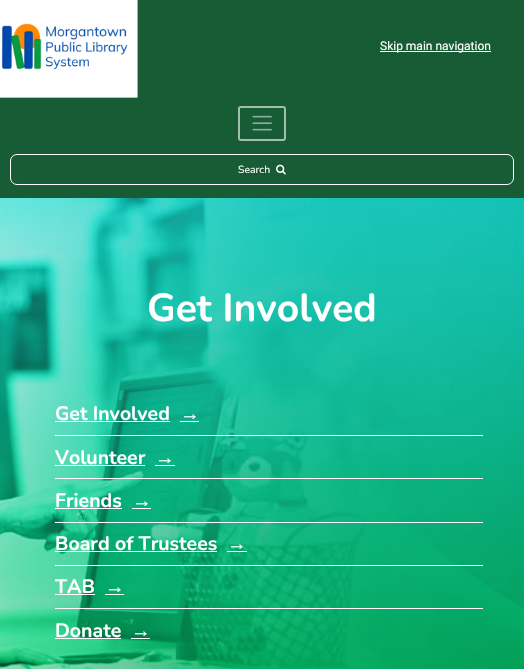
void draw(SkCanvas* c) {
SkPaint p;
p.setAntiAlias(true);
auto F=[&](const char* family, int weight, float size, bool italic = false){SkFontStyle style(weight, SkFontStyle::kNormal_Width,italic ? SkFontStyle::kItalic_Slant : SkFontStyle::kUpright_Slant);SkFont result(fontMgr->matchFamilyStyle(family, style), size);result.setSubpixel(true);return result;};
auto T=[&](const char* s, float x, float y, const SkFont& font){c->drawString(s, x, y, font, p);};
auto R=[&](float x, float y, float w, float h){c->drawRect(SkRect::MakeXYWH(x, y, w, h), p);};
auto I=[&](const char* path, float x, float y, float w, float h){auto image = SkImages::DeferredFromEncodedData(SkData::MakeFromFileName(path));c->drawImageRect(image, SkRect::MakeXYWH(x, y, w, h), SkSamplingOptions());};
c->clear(0xffffffff);
p.setColor(0xff185c36);
R(0,0,524,198);
I("1.png",0,0,138,98);
p.setColor(0xffffffff);
R(380,51,111,1);
auto f1 = F("Roboto",400,12);
T("Skip main navigation",380,50,f1);
p.setStroke(true);
p.setStrokeWidth(2);
p.setColor(0xffa3beaf);
c->drawRoundRect(SkRect::MakeXYWH(239,107,46,33),2,2,p);
I("2.png",252,115,20,16);
p.setStrokeWidth(1);
p.setColor(0xffffffff);
c->drawRoundRect(SkRect::MakeXYWH(10.5,154.5,503,30),6.5,6.5,p);
auto f2 = F("Nunito",400,10.5);
p.setStroke(false);
T("Search",238,173,f2);
I("3.png",276,164,10,11);
I("4.png",0,198,524,471);
auto f3 = F("Nunito",700,39);
T("Get Involved",147,321,f3);
R(55,435,428,1);
auto f4 = F("Nunito",700,19.5);
T("Get Involved",55,420,f4);
R(55,421,115,1);
auto f5 = F("Liberation Sans",700,19.5);
T("→",180,420,f5);
R(180,421,19,1);
R(55,478,428,1);
T("Volunteer",55,464,f4);
R(55,465,90,1);
T("→",155,464,f5);
R(155,465,20,1);
R(55,522,428,1);
T("Friends",55,507,f4);
R(55,508,67,1);
T("→",132,507,f5);
R(132,508,19,1);
R(55,565,428,1);
T("Board of Trustees",55,550,f4);
R(55,551,162,1);
T("→",227,550,f5);
R(227,551,20,1);
R(55,608,428,1);
T("TAB",55,593,f4);
R(55,594,40,1);
T("→",105,593,f5);
R(105,594,19,1);
T("Donate",55,637,f4);
R(55,638,66,1);
T("→",131,637,f5);
R(131,638,19,1);
}
